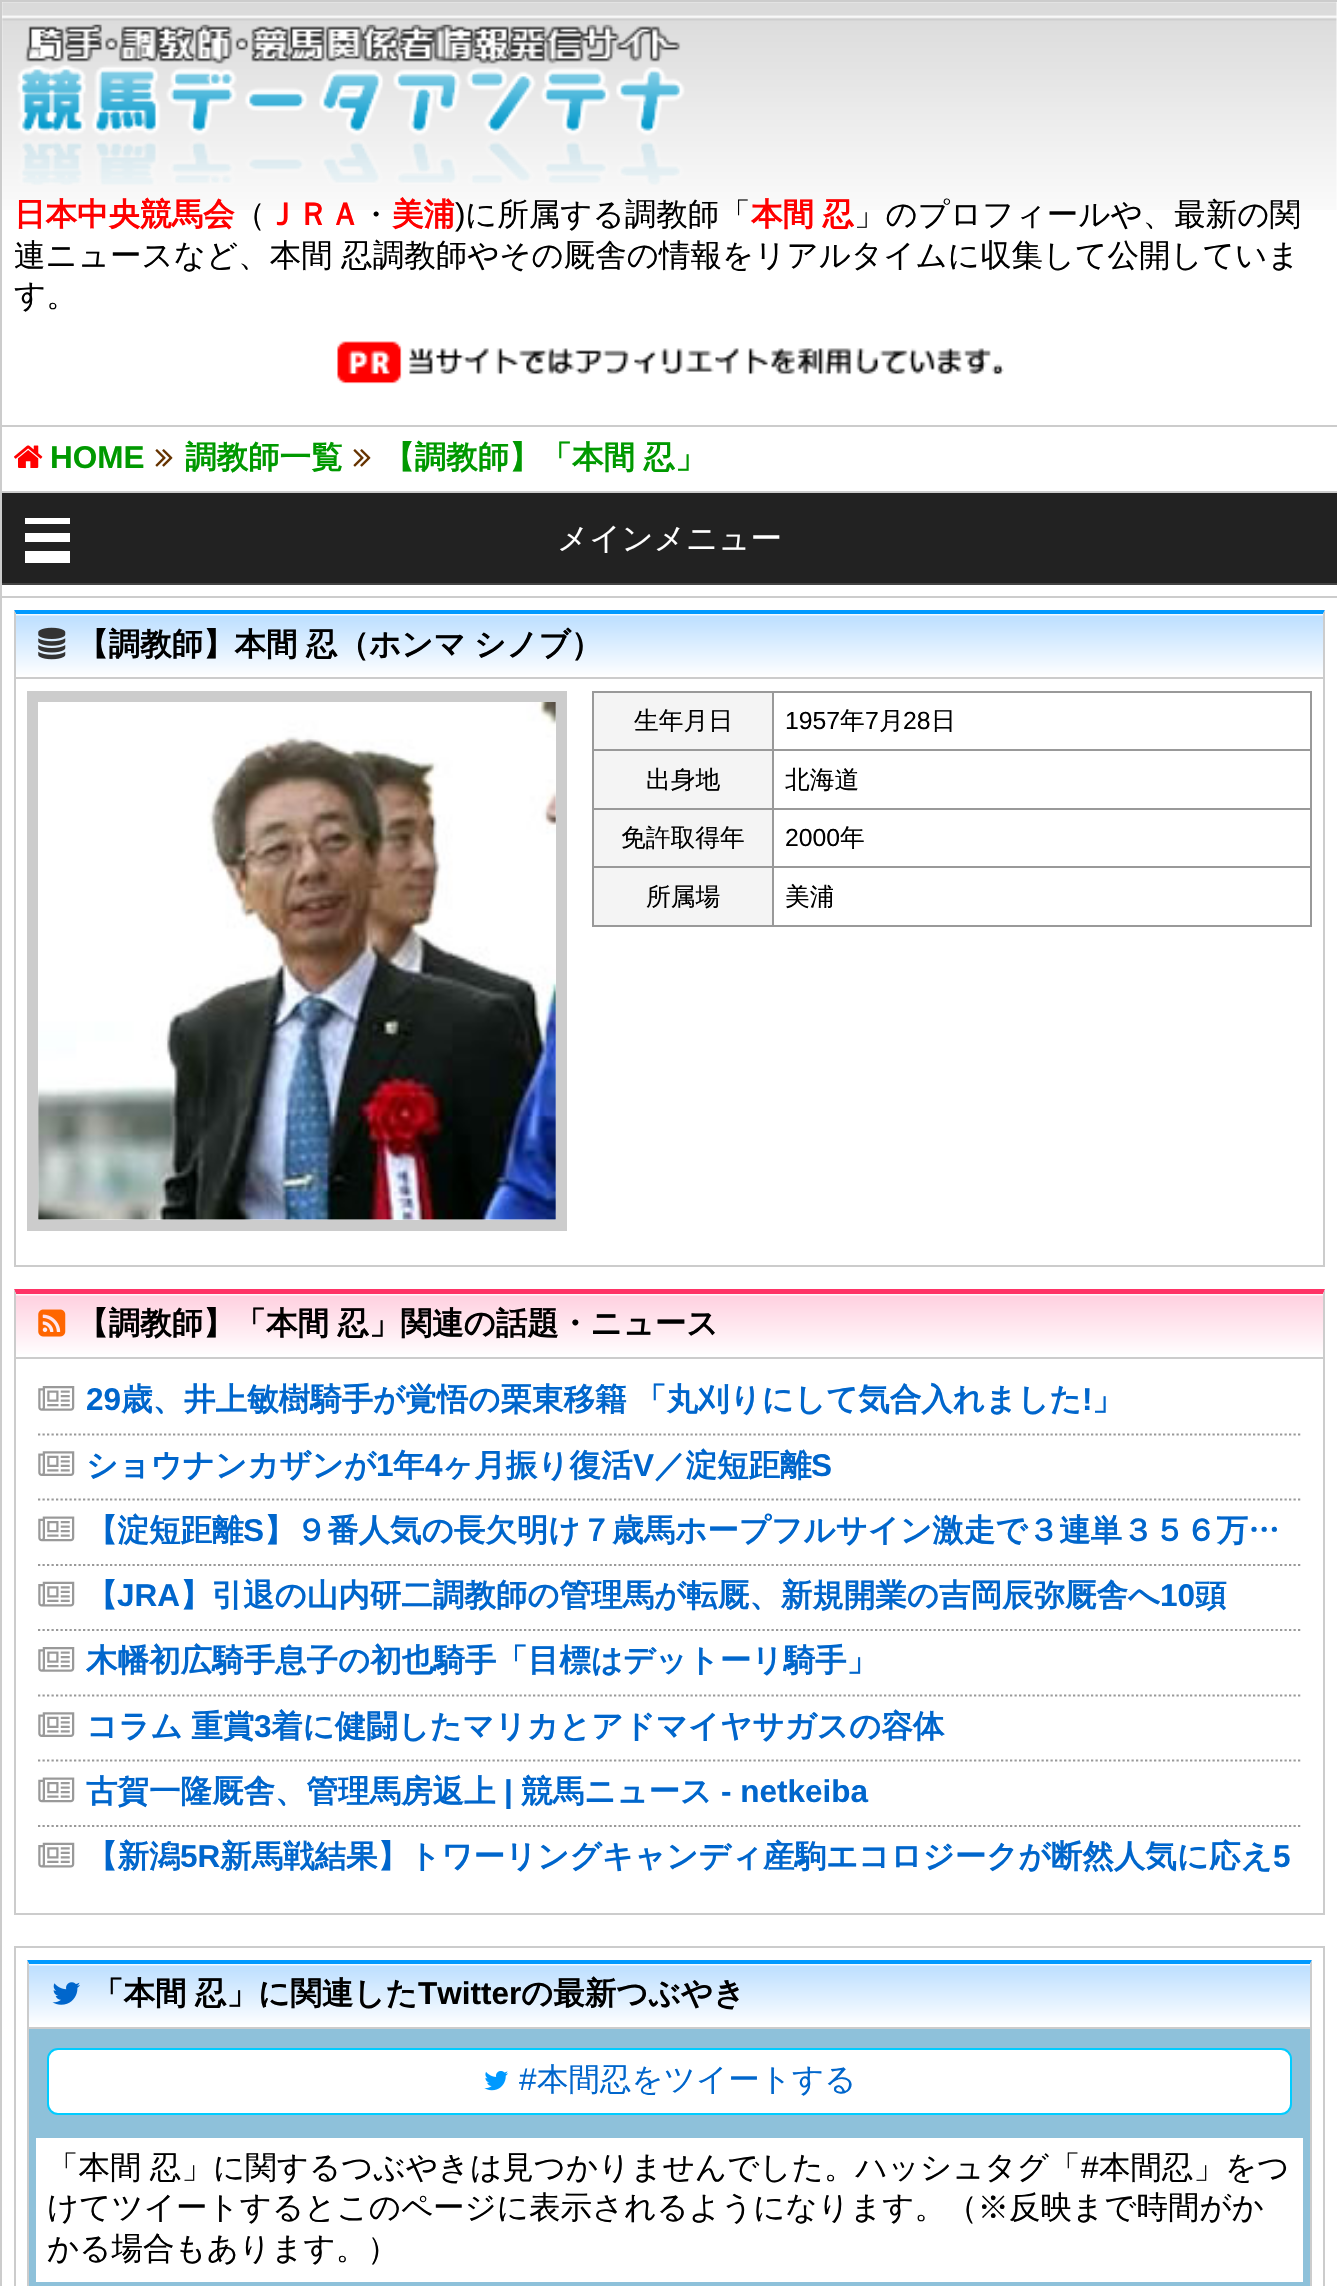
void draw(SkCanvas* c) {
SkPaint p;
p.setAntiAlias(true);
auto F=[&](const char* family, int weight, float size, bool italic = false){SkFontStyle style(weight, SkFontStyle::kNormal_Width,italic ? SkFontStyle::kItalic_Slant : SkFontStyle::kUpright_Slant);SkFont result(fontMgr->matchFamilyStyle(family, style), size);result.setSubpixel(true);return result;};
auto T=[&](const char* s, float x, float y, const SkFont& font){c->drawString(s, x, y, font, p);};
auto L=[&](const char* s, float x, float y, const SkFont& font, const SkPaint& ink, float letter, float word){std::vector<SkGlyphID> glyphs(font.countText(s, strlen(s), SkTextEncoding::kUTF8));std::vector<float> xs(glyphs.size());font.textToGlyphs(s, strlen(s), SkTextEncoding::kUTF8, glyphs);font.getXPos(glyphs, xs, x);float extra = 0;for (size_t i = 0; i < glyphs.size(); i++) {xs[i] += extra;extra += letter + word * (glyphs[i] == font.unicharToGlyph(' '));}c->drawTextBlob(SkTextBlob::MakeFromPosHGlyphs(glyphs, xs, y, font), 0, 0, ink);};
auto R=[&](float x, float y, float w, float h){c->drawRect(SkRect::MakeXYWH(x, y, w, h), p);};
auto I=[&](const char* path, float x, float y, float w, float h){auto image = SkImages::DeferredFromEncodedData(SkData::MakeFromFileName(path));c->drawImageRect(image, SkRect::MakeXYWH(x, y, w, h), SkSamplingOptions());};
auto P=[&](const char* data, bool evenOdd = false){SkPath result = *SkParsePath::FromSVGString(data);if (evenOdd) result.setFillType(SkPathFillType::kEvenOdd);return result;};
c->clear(0xffffffff);
p.setStroke(true);
p.setStrokeWidth(2);
p.setColor(0xffcccccc);
c->drawRect(SkRect::MakeXYWH(1,1,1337,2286),p);
I("1.png",2,2,1335,208);
p.setStroke(false);
R(2,425,1335,2);
I("2.png",16,24,669,161);
auto f1 = F("WenQuanYi Zen Hei",700,31.5);
p.setColor(0xffff0000);
T("日本中央競馬会",14,225,f1);
auto f2 = F("WenQuanYi Zen Hei",500,31.5);
p.setColor(0xff000000);
T("（",234,225,f2);
p.setColor(0xffff0000);
T("ＪＲＡ",266,225,f1);
p.setColor(0xff000000);
T("・",360,225,f2);
p.setColor(0xffff0000);
T("美浦",392,225,f1);
auto f3 = F("Liberation Sans",400,31.5);
p.setColor(0xff000000);
T(")",455,225,f3);
T("に所属する調教師「",465,225,f2);
p.setColor(0xffff0000);
L("本間 忍",751,225,f1,p,0,-1);
p.setColor(0xff000000);
T("」のプロフィールや、最新の関",854,225,f2);
L("連ニュースなど、本間 忍調教師やその厩舎の情報をリアルタイムに収集して公開していま",14,266,f2,p,0,-1);
T("す。",14,306,f2);
I("3.png",337,341,667,43);
p.setColor(0xffcccccc);
R(2,491,1335,2);
I("4.png",14,445,29,23);
auto f4 = F("Liberation Sans",700,31.5);
p.setColor(0xff009900);
T("HOME",50,468,f4);
I("5.png",155,449,18,18);
T("調教師一覧",185,468,f1);
I("5.png",353,449,18,18);
L("【調教師】「本間 忍」",383,468,f1,p,0,-1);
p.setColor(0xffcccccc);
R(2,596,1335,2);
p.setColor(0xff222222);
R(2,493,1335,90);
p.setColor(0xffffffff);
R(25,518,45,45);
p.setColor(0xff444444);
R(2,583,1335,2);
p.setColor(0xff222222);
R(25,524,45,9);
p.setColor(0xffffffff);
T("メインメニュー",557,549,f2);
p.setColor(0xff222222);
R(25,542,45,9);
{
const SkColor colors[] = {0xffffffff,0xffbddfff,0xffffffff};
const float stops[] = {0,.04,1};
const SkPoint ends[] = {{669,614}, {669,677}};
p.setShader(SkGradientShader::MakeLinear(ends, colors, stops, 3, SkTileMode::kClamp));
p.setAlpha(255);
}
R(16,614,1307,61);
p.setShader(nullptr);
p.setColor(0xff0099ff);
c->drawPath(P("M14 610h1311l-2 4h-1307z"),p);
p.setColor(0xffcccccc);
c->drawPath(P("M1325 610v67h-2v-63z"),p);
c->drawPath(P("M14 677v-67l2 4v63z"),p);
I("6.png",38,627,28,33);
p.setColor(0xff000000);
L("【調教師】本間 忍（ホンマ シノブ）",77,655,f1,p,0,-1);
p.setStroke(true);
p.setColor(0xffcccccc);
c->drawRect(SkRect::MakeXYWH(15,678,1309,588),p);
p.setStrokeWidth(11);
c->drawRect(SkRect::MakeXYWH(32.5,696.5,529,529),p);
I("7.png",38,702,518,518);
p.setStroke(false);
p.setColor(0xfff4f4f4);
R(594,693,178,115);
p.setColor(0xff999999);
R(772,691,540,2);
R(772,749,540,2);
R(772,808,540,2);
p.setColor(0xfff4f4f4);
R(594,810,178,115);
p.setColor(0xff999999);
R(772,866,540,2);
R(1310,866,2,61);
R(772,925,540,2);
R(772,866,2,61);
R(592,866,182,2);
R(772,808,2,61);
R(592,808,182,2);
R(772,749,2,61);
R(592,749,182,2);
R(772,691,2,61);
R(592,691,182,2);
R(592,925,182,2);
R(592,866,2,61);
R(592,808,2,61);
R(592,749,2,61);
R(592,691,2,61);
auto f5 = F("WenQuanYi Zen Hei",500,24.75);
p.setColor(0xff000000);
T("生年月日",634,729,f5);
p.setColor(0xff999999);
R(1310,808,2,61);
R(1310,749,2,61);
R(1310,691,2,61);
auto f6 = F("Liberation Sans",400,24.75);
p.setColor(0xff000000);
T("1957",785,729,f6);
T("年",840,729,f5);
T("7",865,729,f6);
T("月",879,729,f5);
T("28",903,729,f6);
T("日",931,729,f5);
T("出身地",646,788,f5);
T("北海道",785,788,f5);
T("免許取得年",621,846,f5);
T("2000",785,846,f6);
T("年",840,846,f5);
T("所属場",646,905,f5);
T("美浦",785,905,f5);
{
const SkColor colors[] = {0xffffffff,0xffffd1e0,0xffffffff};
const float stops[] = {0,.04,1};
const SkPoint ends[] = {{669,1294}, {669,1357}};
p.setShader(SkGradientShader::MakeLinear(ends, colors, stops, 3, SkTileMode::kClamp));
p.setAlpha(255);
}
R(16,1294,1307,60);
p.setShader(nullptr);
p.setColor(0xffff3366);
c->drawPath(P("M14 1289h1311l-2 5h-1307z"),p);
p.setColor(0xffcccccc);
c->drawPath(P("M1325 1289v68h-2v-63z"),p);
c->drawPath(P("M14 1357v-68l2 5v63z"),p);
I("8.png",38,1309,28,28);
p.setColor(0xff000000);
L("【調教師】「本間 忍」関連の話題・ニュース",77,1334,f1,p,0,-1);
p.setStroke(true);
p.setStrokeWidth(2);
p.setColor(0xffcccccc);
c->drawRect(SkRect::MakeXYWH(15,1358,1309,556),p);
p.setStrokeWidth(2.2);
p.setColor(0xff999999);
p.setPathEffect(SkDashPathEffect::Make({{2.25f,2.25f}}, 0));
c->drawPath(P("M38 1434.5h1262.5"),p);
p.setPathEffect(nullptr);
I("9.png",38,1386,37,25);
p.setStroke(false);
p.setColor(0xff0066cc);
T("29",86,1410,f4);
L("歳、井上敏樹騎手が覚悟の栗東移籍 「丸刈りにして気合入れました",121,1410,f1,p,0,-1);
T("!",1082,1410,f4);
T("」",1092,1410,f1);
p.setStroke(true);
p.setColor(0xff999999);
p.setPathEffect(SkDashPathEffect::Make({{2.25f,2.25f}}, 0));
c->drawPath(P("M38 1499.5h1262.5"),p);
p.setPathEffect(nullptr);
I("10.png",38,1451,37,25);
p.setStroke(false);
p.setColor(0xff0066cc);
T("ショウナンカザンが",86,1476,f1);
T("1",376,1476,f4);
T("年",393,1476,f1);
T("4",425,1476,f4);
T("ヶ月振り復活",442,1476,f1);
T("V",633,1476,f4);
T("／淀短距離",654,1476,f1);
T("S",811,1476,f4);
p.setStroke(true);
p.setColor(0xff999999);
p.setPathEffect(SkDashPathEffect::Make({{2.25f,2.25f}}, 0));
c->drawPath(P("M38 1565h1262.5"),p);
p.setPathEffect(nullptr);
I("11.png",38,1516,37,26);
p.setStroke(false);
p.setColor(0xff0066cc);
T("【淀短距離",86,1541,f1);
T("S",243,1541,f4);
T("】９番人気の長欠明け７歳馬ホープフルサイン激走で３連単３５６万…",264,1541,f1);
p.setStroke(true);
p.setColor(0xff999999);
p.setPathEffect(SkDashPathEffect::Make({{2.25f,2.25f}}, 0));
c->drawPath(P("M38 1630h1262.5"),p);
p.setPathEffect(nullptr);
I("12.png",38,1581,37,26);
p.setStroke(false);
p.setColor(0xff0066cc);
T("【",86,1606,f1);
T("JRA",117,1606,f4);
T("】引退の山内研二調教師の管理馬が転厩、新規開業の吉岡辰弥厩舎へ",180,1606,f1);
T("10",1160,1606,f4);
T("頭",1195,1606,f1);
p.setStroke(true);
p.setColor(0xff999999);
p.setPathEffect(SkDashPathEffect::Make({{2.25f,2.25f}}, 0));
c->drawPath(P("M38 1695.5h1262.5"),p);
p.setPathEffect(nullptr);
I("9.png",38,1647,37,25);
p.setStroke(false);
p.setColor(0xff0066cc);
T("木幡初広騎手息子の初也騎手「目標はデットーリ騎手」",86,1671,f1);
p.setStroke(true);
p.setColor(0xff999999);
p.setPathEffect(SkDashPathEffect::Make({{2.25f,2.25f}}, 0));
c->drawPath(P("M38 1760.5h1262.5"),p);
p.setPathEffect(nullptr);
I("10.png",38,1712,37,25);
p.setStroke(false);
p.setColor(0xff0066cc);
L("コラム 重賞",86,1737,f1,p,0,-1);
T("3",254,1737,f4);
T("着に健闘したマリカとアドマイヤサガスの容体",271,1737,f1);
p.setStroke(true);
p.setColor(0xff999999);
p.setPathEffect(SkDashPathEffect::Make({{2.25f,2.25f}}, 0));
c->drawPath(P("M38 1826h1262.5"),p);
p.setPathEffect(nullptr);
I("11.png",38,1777,37,26);
p.setStroke(false);
p.setColor(0xff0066cc);
T("古賀一隆厩舎、管理馬房返上",86,1802,f1);
T("|",504,1802,f4);
T("競馬ニュース",521,1802,f1);
T("- netkeiba",721,1802,f4);
I("12.png",38,1842,37,26);
T("【新潟",86,1867,f1);
T("5R",180,1867,f4);
T("新馬戦結果】トワーリングキャンディ産駒エコロジークが断然人気に応え",220,1867,f1);
T("5",1273,1867,f4);
p.setStroke(true);
p.setStrokeWidth(2);
p.setColor(0xffcccccc);
c->drawRect(SkRect::MakeXYWH(15,1947,1309,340),p);
p.setStroke(false);
{
const SkColor colors[] = {0xffffffff,0xffbddfff,0xffffffff};
const float stops[] = {0,.04,1};
const SkPoint ends[] = {{669,1964}, {669,2027}};
p.setShader(SkGradientShader::MakeLinear(ends, colors, stops, 3, SkTileMode::kClamp));
p.setAlpha(255);
}
R(29,1964,1281,61);
p.setShader(nullptr);
p.setColor(0xff0099ff);
c->drawPath(P("M27 1960h1285l-2 4h-1281z"),p);
p.setColor(0xffcccccc);
c->drawPath(P("M1312 1960v67h-2v-63z"),p);
c->drawPath(P("M27 2027v-67l2 4v63z"),p);
I("13.png",52,1982,28,23);
p.setColor(0xff000000);
L("「本間 忍」に関連した",92,2004,f1,p,0,-1);
T("Twitter",418,2004,f4);
T("の最新つぶやき",521,2004,f1);
p.setColor(0xff8ec1da);
c->drawRect(SkRect::MakeXYWH(28,2028,1283,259),p);
p.setStroke(true);
p.setColor(0xffcccccc);
c->drawRect(SkRect::MakeXYWH(28,2028,1283,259),p);
p.setStroke(false);
p.setColor(0xffffffff);
c->drawRoundRect(SkRect::MakeXYWH(48,2049,1243,65),10,10,p);
p.setStroke(true);
p.setColor(0xff00ccff);
c->drawRoundRect(SkRect::MakeXYWH(48,2049,1243,65),10,10,p);
I("14.png",484,2071,24,20);
p.setStroke(false);
p.setColor(0xff0066cc);
T("#",519,2090,f3);
T("本間忍をツイートする",537,2090,f2);
p.setColor(0xffffffff);
R(36,2138,1267,144);
p.setColor(0xff000000);
L("「本間 忍」に関するつぶやきは見つかりませんでした。ハッシュタグ「",47,2178,f2,p,0,-1);
T("#",1081,2178,f3);
T("本間忍」をつ",1099,2178,f2);
T("けてツイートするとこのページに表示されるようになります。（※反映まで時間がか",47,2218,f2);
T("かる場合もあります。）",47,2259,f2);
}
